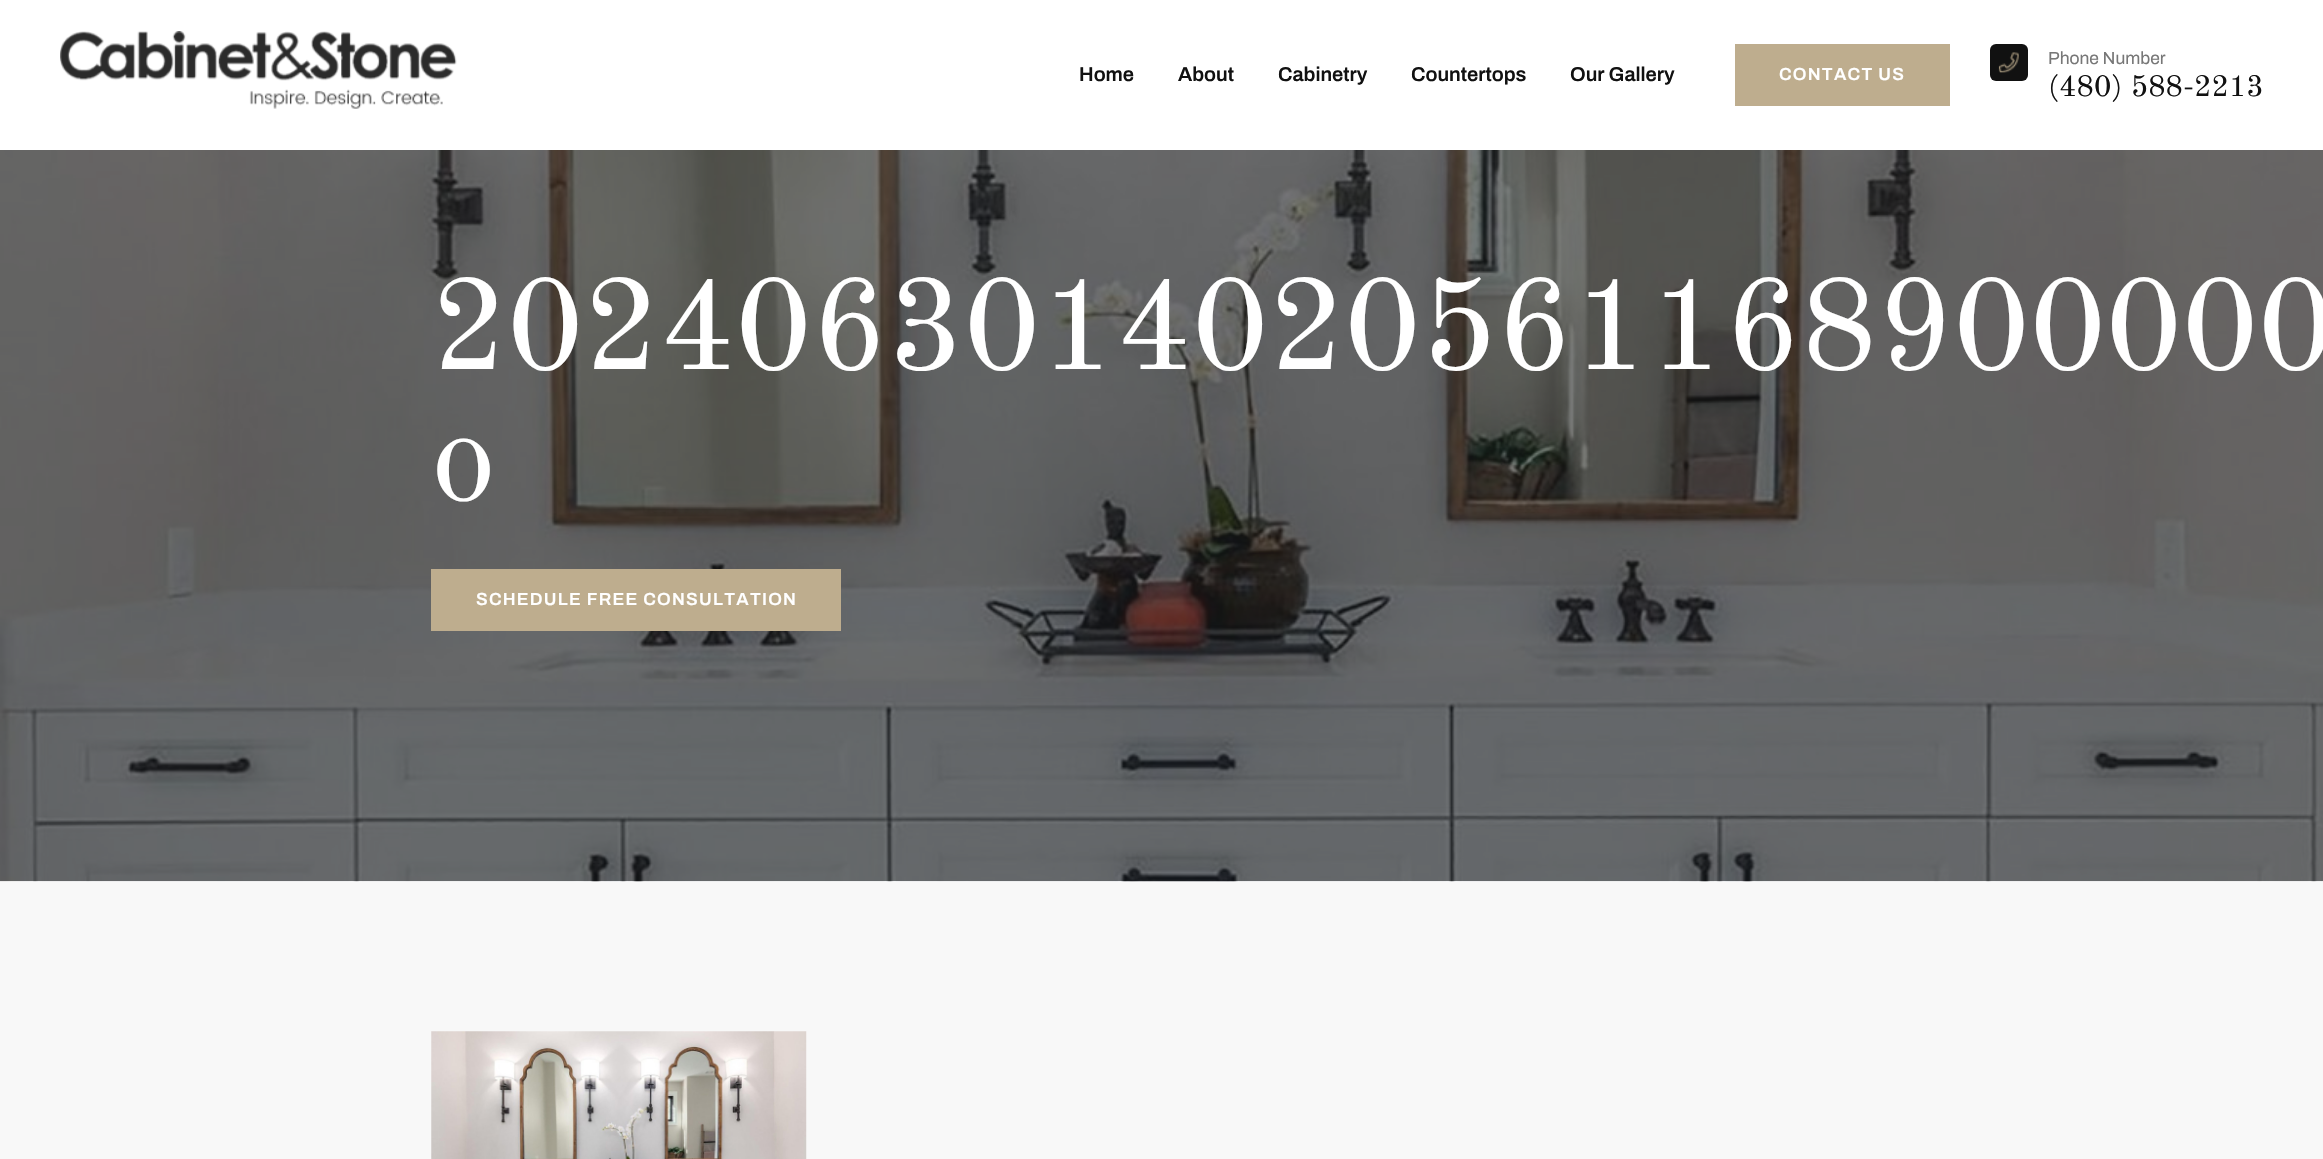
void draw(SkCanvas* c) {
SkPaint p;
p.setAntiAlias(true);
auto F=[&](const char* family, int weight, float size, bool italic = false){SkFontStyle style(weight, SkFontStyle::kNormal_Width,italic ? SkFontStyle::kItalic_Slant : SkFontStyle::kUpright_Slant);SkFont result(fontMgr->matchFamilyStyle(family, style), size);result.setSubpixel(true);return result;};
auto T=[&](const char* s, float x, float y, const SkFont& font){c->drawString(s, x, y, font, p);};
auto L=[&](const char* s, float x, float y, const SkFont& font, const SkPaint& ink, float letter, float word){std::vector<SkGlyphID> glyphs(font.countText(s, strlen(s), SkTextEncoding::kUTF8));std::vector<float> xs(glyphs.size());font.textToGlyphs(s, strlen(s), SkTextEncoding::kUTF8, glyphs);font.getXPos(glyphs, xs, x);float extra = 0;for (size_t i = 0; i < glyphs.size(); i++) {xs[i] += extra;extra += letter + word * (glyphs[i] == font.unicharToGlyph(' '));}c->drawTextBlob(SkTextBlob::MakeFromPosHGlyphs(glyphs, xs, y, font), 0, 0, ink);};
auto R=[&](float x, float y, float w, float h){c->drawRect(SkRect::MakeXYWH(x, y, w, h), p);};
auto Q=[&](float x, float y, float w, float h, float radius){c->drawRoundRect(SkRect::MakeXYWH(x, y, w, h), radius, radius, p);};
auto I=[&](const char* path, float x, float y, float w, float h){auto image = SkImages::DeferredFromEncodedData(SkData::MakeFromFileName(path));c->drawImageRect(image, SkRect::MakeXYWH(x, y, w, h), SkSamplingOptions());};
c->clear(0xfff8f8f8);
p.setColor(0xffffffff);
R(0,0,2323,150);
I("1.png",60,31,397,78);
auto f1 = F("Archivo",600,20);
p.setColor(0xff111111);
T("Home",1079,81,f1);
T("About",1178,81,f1);
T("Cabinetry",1278,81,f1);
T("Countertops",1411,81,f1);
T("Our Gallery",1570,81,f1);
p.setColor(0xffbead8e);
R(1735,44,215,62);
auto f2 = F("Archivo",600,17.5);
p.setColor(0xffffffff);
L("CONTACT US",1779,80,f2,p,1.25,0);
p.setColor(0xff111111);
Q(1990,44,38,37,6);
I("2.png",1998,52,21,21);
auto f3 = F("Archivo",400,17.5);
p.setColor(0xff777777);
T("Phone Number",2048,64,f3);
auto f4 = F("Old Standard TT",400,30);
p.setColor(0xff111111);
T("(480) 588-2213",2048,96,f4);
I("3.png",0,150,2323,732);
auto f5 = F("Old Standard TT",400,131.25);
p.setColor(0xffffffff);
T("2024063014020561168900000",431,369,f5);
T("o",431,500,f5);
p.setColor(0xffbead8e);
R(431,569,410,62);
p.setColor(0xffffffff);
L("SCHEDULE FREE CONSULTATION",476,605,f2,p,1.25,0);
I("4.png",431,1031,376,128);
}
